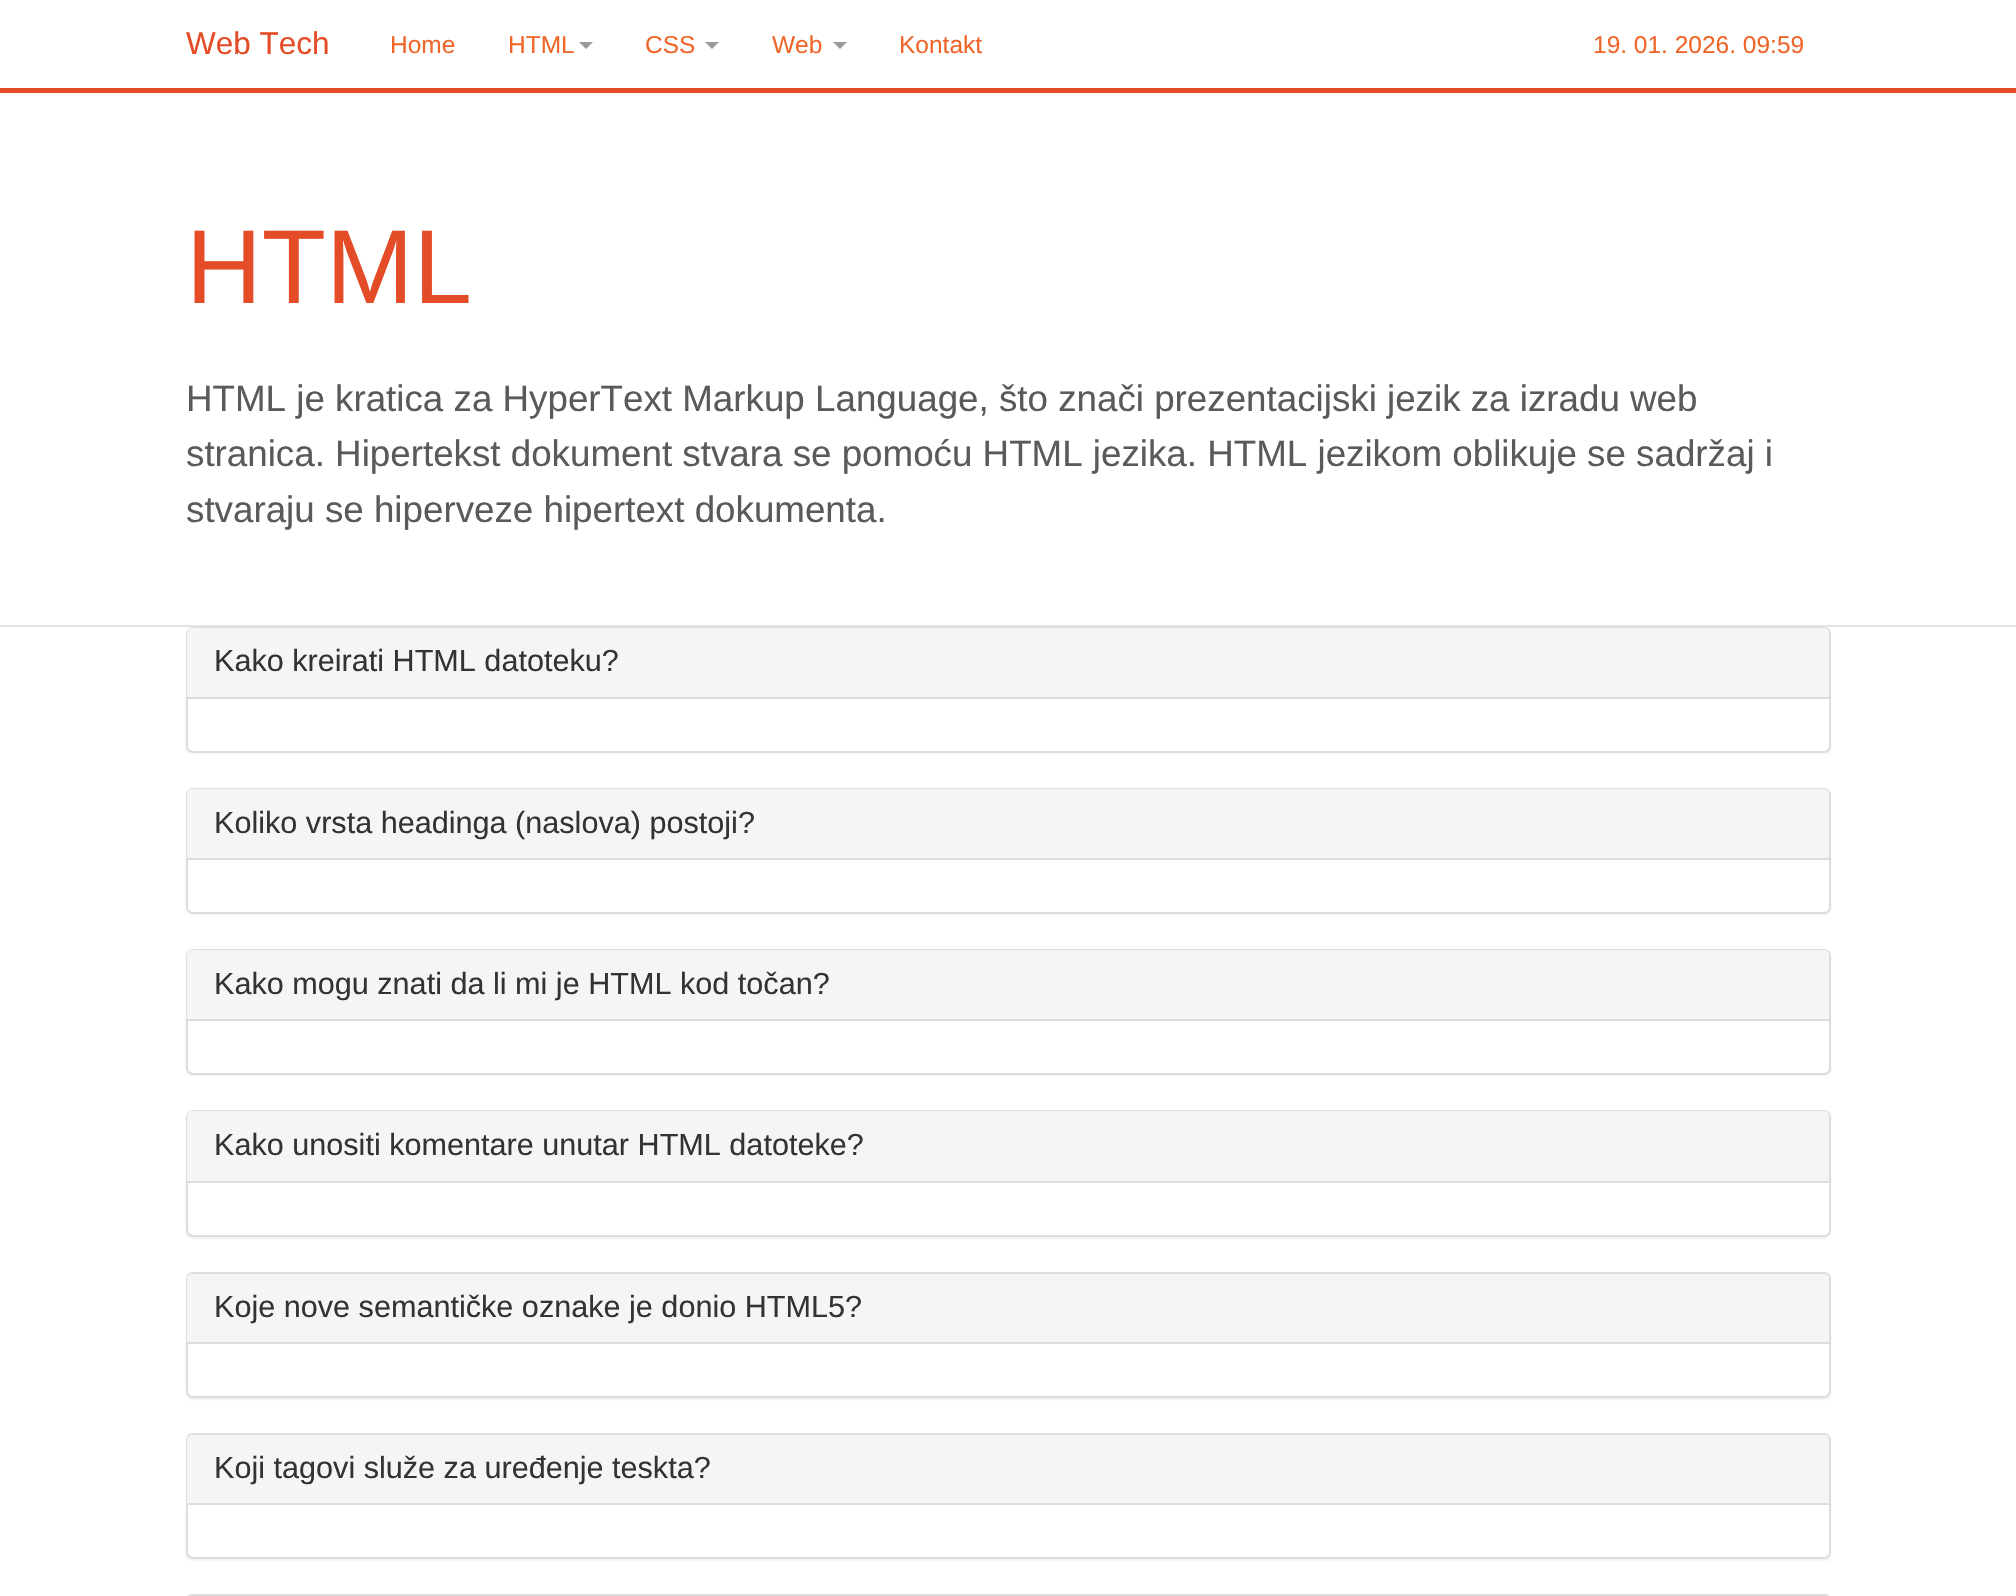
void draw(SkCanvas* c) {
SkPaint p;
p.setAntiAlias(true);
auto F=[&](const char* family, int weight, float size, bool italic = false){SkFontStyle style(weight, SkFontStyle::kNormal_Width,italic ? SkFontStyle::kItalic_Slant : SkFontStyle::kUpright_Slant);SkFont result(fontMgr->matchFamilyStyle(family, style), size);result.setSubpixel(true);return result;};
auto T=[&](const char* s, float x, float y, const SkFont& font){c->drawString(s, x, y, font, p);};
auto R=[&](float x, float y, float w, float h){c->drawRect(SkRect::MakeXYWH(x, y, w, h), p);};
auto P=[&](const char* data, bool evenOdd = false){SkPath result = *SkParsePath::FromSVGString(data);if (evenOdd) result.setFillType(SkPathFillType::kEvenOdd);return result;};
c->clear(0xffffffff);
p.setColor(0xffe34c26);
R(0,88,2016,5);
auto f1 = F("Liberation Sans",400,31.5);
T("Web Tech",186,54,f1);
auto f2 = F("Liberation Sans",400,24.5);
p.setColor(0xfff06529);
T("Home",390,53,f2);
T("HTML",508,53,f2);
p.setColor(0xff999999);
c->drawPath(P("M579 42h14l-7 7z"),p);
p.setColor(0xfff06529);
T("CSS",645,53,f2);
p.setColor(0xff999999);
c->drawPath(P("M705 42h14l-7 7z"),p);
p.setColor(0xfff06529);
T("Web",772,53,f2);
p.setColor(0xff999999);
c->drawPath(P("M833 42h14l-7 7z"),p);
p.setColor(0xfff06529);
T("Kontakt",899,53,f2);
T("19. 01. 2026. 09:59",1593,53,f2);
p.setColor(0xffe5e5e5);
R(0,625,2016,2);
auto f3 = F("Liberation Sans",400,105);
p.setColor(0xffe34c26);
T("HTML",186,303,f3);
auto f4 = F("Liberation Sans",400,36.75);
p.setColor(0xff5a5a5a);
T("HTML je kratica za HyperText Markup Language, što znači prezentacijski jezik za izradu web",186,411,f4);
T("stranica. Hipertekst dokument stvara se pomoću HTML jezika. HTML jezikom oblikuje se sadržaj i",186,466,f4);
T("stvaraju se hiperveze hipertext dokumenta.",186,522,f4);
p.setColor(0x0d000000);
p.setMaskFilter(SkMaskFilter::MakeBlur(kNormal_SkBlurStyle, 1));
c->drawRoundRect(SkRect::MakeXYWH(186,628,1645,126),7,7,p);
p.setMaskFilter(nullptr);
p.setColor(0xffffffff);
c->drawRoundRect(SkRect::MakeXYWH(187,628,1643,124),6,6,p);
p.setStroke(true);
p.setStrokeWidth(2);
p.setColor(0xffdddddd);
c->drawRoundRect(SkRect::MakeXYWH(187,628,1643,124),6,6,p);
p.setStroke(false);
p.setColor(0xfff5f5f5);
c->drawPath(P("M192 628h1632c3 0 5 2 5 5v65h-1642v-65c0-3 2-5 5-5z"),p);
p.setColor(0xffdddddd);
R(187,697,1642,2);
auto f5 = F("Liberation Sans",400,30.6);
p.setColor(0xff333333);
T("Kako kreirati HTML datoteku?",214,671,f5);
p.setColor(0x0d000000);
p.setMaskFilter(SkMaskFilter::MakeBlur(kNormal_SkBlurStyle, 1));
c->drawRoundRect(SkRect::MakeXYWH(186,789,1645,126),7,7,p);
p.setMaskFilter(nullptr);
p.setColor(0xffffffff);
c->drawRoundRect(SkRect::MakeXYWH(187,789,1643,124),6,6,p);
p.setStroke(true);
p.setColor(0xffdddddd);
c->drawRoundRect(SkRect::MakeXYWH(187,789,1643,124),6,6,p);
p.setStroke(false);
p.setColor(0xfff5f5f5);
c->drawPath(P("M192 789h1632c3 0 5 2 5 5v65h-1642v-65c0-3 2-5 5-5z"),p);
p.setColor(0xffdddddd);
R(187,858,1642,2);
p.setColor(0xff333333);
T("Koliko vrsta headinga (naslova) postoji?",214,833,f5);
p.setColor(0x0d000000);
p.setMaskFilter(SkMaskFilter::MakeBlur(kNormal_SkBlurStyle, 1));
c->drawRoundRect(SkRect::MakeXYWH(186,950,1645,126),7,7,p);
p.setMaskFilter(nullptr);
p.setColor(0xffffffff);
c->drawRoundRect(SkRect::MakeXYWH(187,950,1643,124),6,6,p);
p.setStroke(true);
p.setColor(0xffdddddd);
c->drawRoundRect(SkRect::MakeXYWH(187,950,1643,124),6,6,p);
p.setStroke(false);
p.setColor(0xfff5f5f5);
c->drawPath(P("M192 950h1632c3 0 5 2 5 5v65h-1642v-65c0-3 2-5 5-5z"),p);
p.setColor(0xffdddddd);
R(187,1019,1642,2);
p.setColor(0xff333333);
T("Kako mogu znati da li mi je HTML kod točan?",214,994,f5);
p.setColor(0x0d000000);
p.setMaskFilter(SkMaskFilter::MakeBlur(kNormal_SkBlurStyle, 1));
c->drawRoundRect(SkRect::MakeXYWH(186,1111,1645,128),7,7,p);
p.setMaskFilter(nullptr);
p.setColor(0xffffffff);
c->drawRoundRect(SkRect::MakeXYWH(187,1111,1643,125),6,6,p);
p.setStroke(true);
p.setColor(0xffdddddd);
c->drawRoundRect(SkRect::MakeXYWH(187,1111,1643,125),6,6,p);
p.setStroke(false);
p.setColor(0xfff5f5f5);
c->drawPath(P("M192 1111h1632c3 0 5 2 5 5v67h-1642v-67c0-3 2-5 5-5z"),p);
p.setColor(0xffdddddd);
R(187,1181,1642,2);
p.setColor(0xff333333);
T("Kako unositi komentare unutar HTML datoteke?",214,1155,f5);
p.setColor(0x0d000000);
p.setMaskFilter(SkMaskFilter::MakeBlur(kNormal_SkBlurStyle, 1));
c->drawRoundRect(SkRect::MakeXYWH(186,1274,1645,126),7,7,p);
p.setMaskFilter(nullptr);
p.setColor(0xffffffff);
c->drawRoundRect(SkRect::MakeXYWH(187,1273,1643,124),6,6,p);
p.setStroke(true);
p.setColor(0xffdddddd);
c->drawRoundRect(SkRect::MakeXYWH(187,1273,1643,124),6,6,p);
p.setStroke(false);
p.setColor(0xfff5f5f5);
c->drawPath(P("M192 1274h1632c3 0 5 2 5 5v65h-1642v-65c0-3 2-5 5-5z"),p);
p.setColor(0xffdddddd);
R(187,1342,1642,2);
p.setColor(0xff333333);
T("Koje nove semantičke oznake je donio HTML5?",214,1317,f5);
p.setColor(0x0d000000);
p.setMaskFilter(SkMaskFilter::MakeBlur(kNormal_SkBlurStyle, 1));
c->drawRoundRect(SkRect::MakeXYWH(186,1435,1645,126),7,7,p);
p.setMaskFilter(nullptr);
p.setColor(0xffffffff);
c->drawRoundRect(SkRect::MakeXYWH(187,1434,1643,124),6,6,p);
p.setStroke(true);
p.setColor(0xffdddddd);
c->drawRoundRect(SkRect::MakeXYWH(187,1434,1643,124),6,6,p);
p.setStroke(false);
p.setColor(0xfff5f5f5);
c->drawPath(P("M192 1435h1632c3 0 5 2 5 5v65h-1642v-65c0-3 2-5 5-5z"),p);
p.setColor(0xffdddddd);
R(187,1503,1642,2);
p.setColor(0xff333333);
T("Koji tagovi služe za uređenje teskta?",214,1478,f5);
p.setStroke(true);
p.setColor(0xffdddddd);
c->drawRoundRect(SkRect::MakeXYWH(187,1595,1643,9),6,6,p);
}
